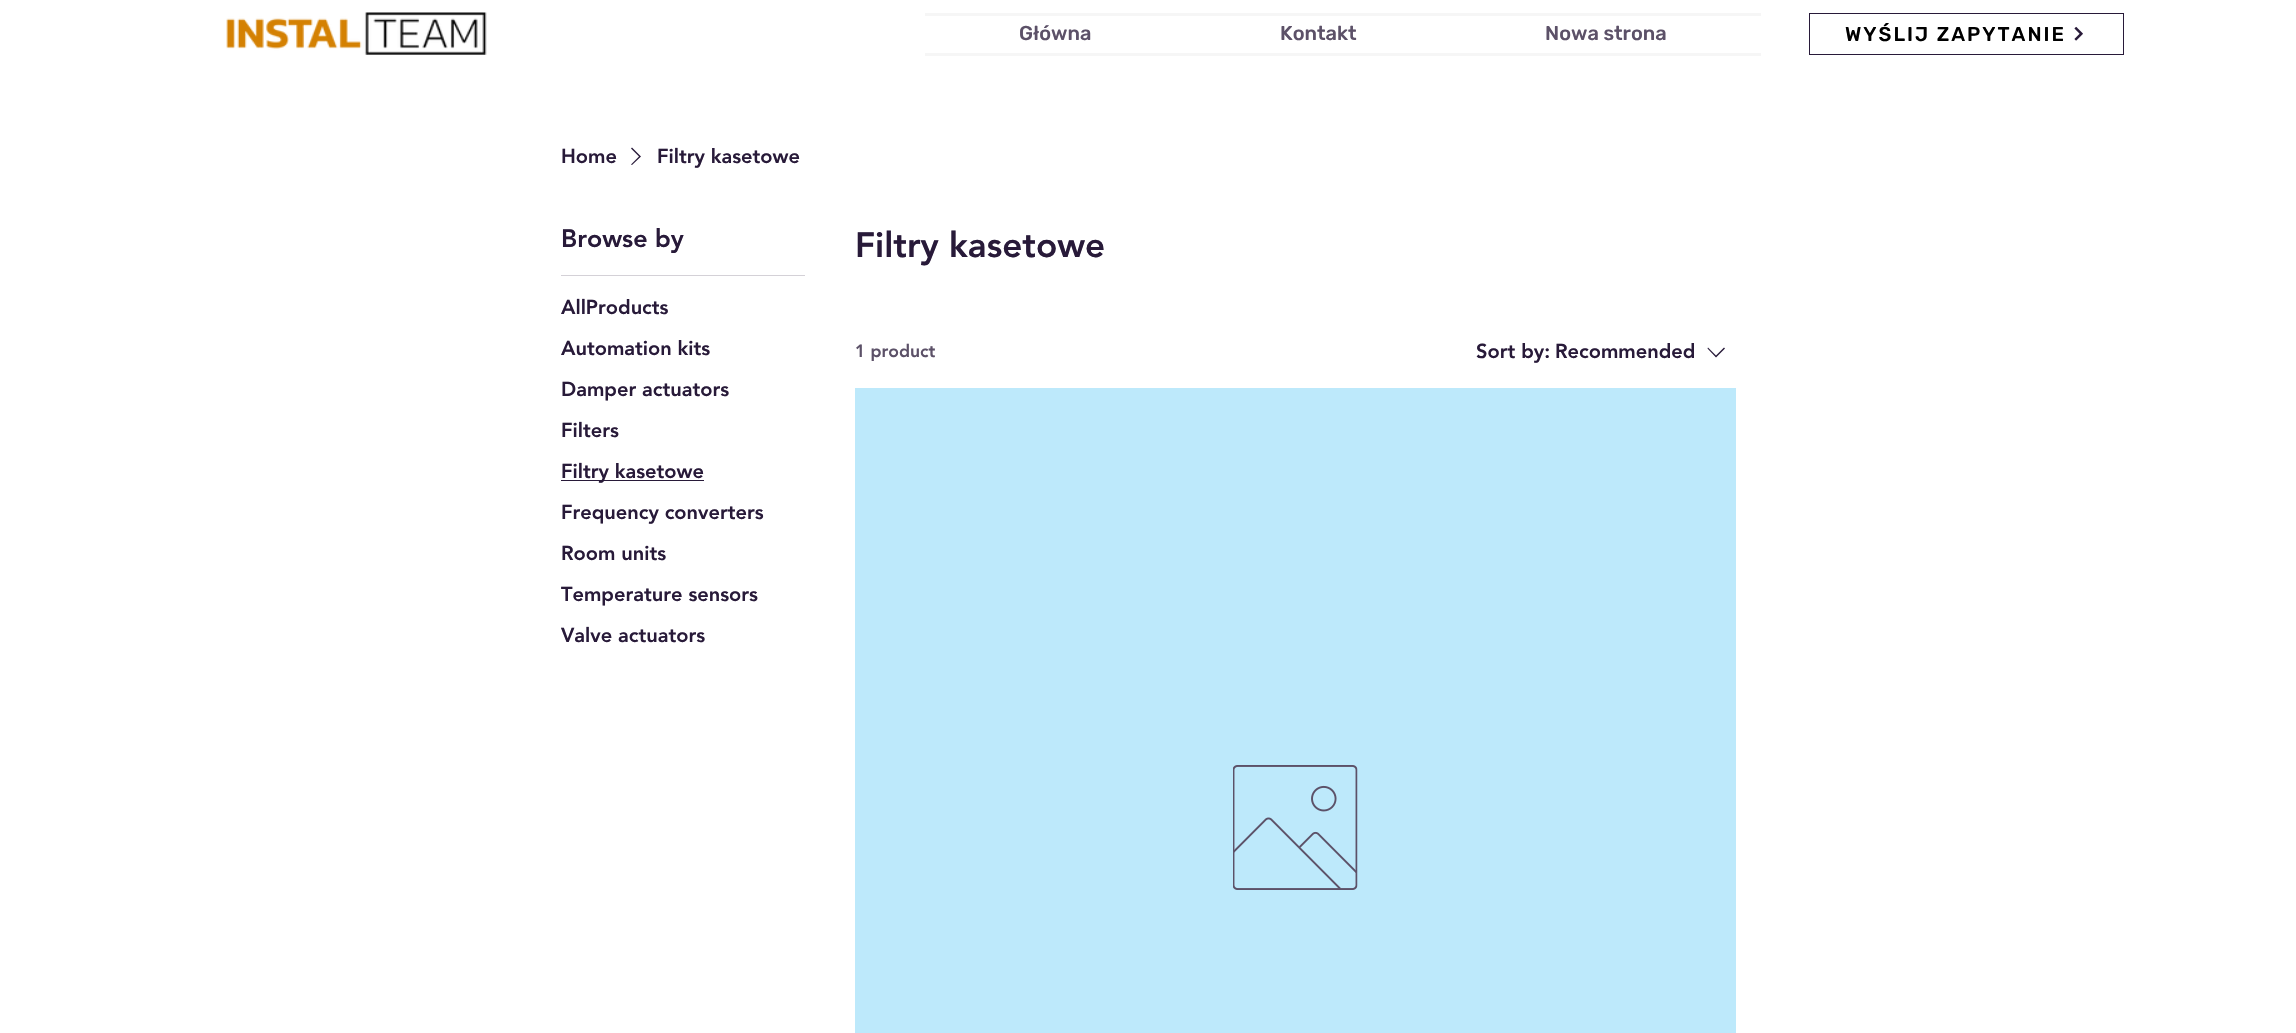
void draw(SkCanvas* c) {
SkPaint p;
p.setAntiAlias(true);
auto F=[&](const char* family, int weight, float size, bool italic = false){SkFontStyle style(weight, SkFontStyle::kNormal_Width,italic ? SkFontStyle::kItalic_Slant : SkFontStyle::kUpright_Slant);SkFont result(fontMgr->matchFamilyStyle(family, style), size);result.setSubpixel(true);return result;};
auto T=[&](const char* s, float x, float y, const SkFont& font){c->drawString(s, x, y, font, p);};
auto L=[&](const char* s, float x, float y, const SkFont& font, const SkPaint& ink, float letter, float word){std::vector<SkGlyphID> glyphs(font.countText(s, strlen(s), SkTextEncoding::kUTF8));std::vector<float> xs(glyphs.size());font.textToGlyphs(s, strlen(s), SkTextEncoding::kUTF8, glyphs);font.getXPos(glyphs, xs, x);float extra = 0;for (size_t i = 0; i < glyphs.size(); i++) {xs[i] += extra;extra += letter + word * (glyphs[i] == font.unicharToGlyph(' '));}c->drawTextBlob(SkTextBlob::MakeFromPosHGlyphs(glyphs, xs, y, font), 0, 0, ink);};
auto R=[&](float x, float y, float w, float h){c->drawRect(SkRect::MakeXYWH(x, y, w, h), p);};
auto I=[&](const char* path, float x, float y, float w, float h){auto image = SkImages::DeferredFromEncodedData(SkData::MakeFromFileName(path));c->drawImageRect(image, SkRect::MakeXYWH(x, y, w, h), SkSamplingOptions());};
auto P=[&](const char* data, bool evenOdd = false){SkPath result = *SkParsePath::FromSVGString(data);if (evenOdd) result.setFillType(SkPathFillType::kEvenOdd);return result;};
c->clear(0xffffffff);
I("1.png",226,12,261,43);
p.setColor(0xfff6f6f6);
R(925,13,836,3);
R(925,53,836,3);
auto f1 = F("Rubik",500,20);
p.setColor(0xff5c5168);
T("Główna",1019,40,f1);
T("Kontakt",1280,40,f1);
T("Nowa strona",1545,40,f1);
p.setStroke(true);
p.setStrokeWidth(1);
p.setColor(0xff281a39);
c->drawRect(SkRect::MakeXYWH(1809.5,13.5,314,41),p);
p.setStroke(false);
p.setColor(0xff000000);
L("WYŚLIJ ZAPYTANIE",1845,41,f1,p,2,0);
I("2.png",2074,26,9,15);
auto f2 = F("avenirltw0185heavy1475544",900,20);
p.setColor(0xff281a39);
T("Home",561,163,f2);
c->drawPath(P("M632 147.5l9 9l-9 8.5l-1-.5l8-8l-8-8z",true),p);
T("Filtry kasetowe",657,163,f2);
p.setColor(0xffd4d1d7);
R(561,275,244,1);
auto f3 = F("avenirltw0185heavy1475544",900,25);
p.setColor(0xff281a39);
T("Browse by",561,247,f3);
T("AllProducts",561,314,f2);
T("Automation kits",561,355,f2);
T("Damper actuators",561,396,f2);
T("Filters",561,437,f2);
R(561,480,143,1);
T("Filtry kasetowe",561,478,f2);
T("Frequency converters",561,519,f2);
T("Room units",561,560,f2);
T("Temperature sensors",561,601,f2);
T("Valve actuators",561,642,f2);
auto f4 = F("avenirltw0185heavy1475544",900,35);
T("Filtry kasetowe",855,257,f4);
auto f5 = F("avenirltw0185heavy1475544",900,17.5);
p.setColor(0xff5c5168);
T("1 product",855,357,f5);
p.setColor(0xff281a39);
T("Sort by:",1476,358,f2);
T("Recommended",1555,358,f2);
c->drawPath(P("M1724 347.5l1 1l-9 9l-8.5-9l.5-1l8 8z",true),p);
p.setColor(0xffbde9fb);
R(855,388,881,645);
I("3.png",1233,765,125,125);
}
